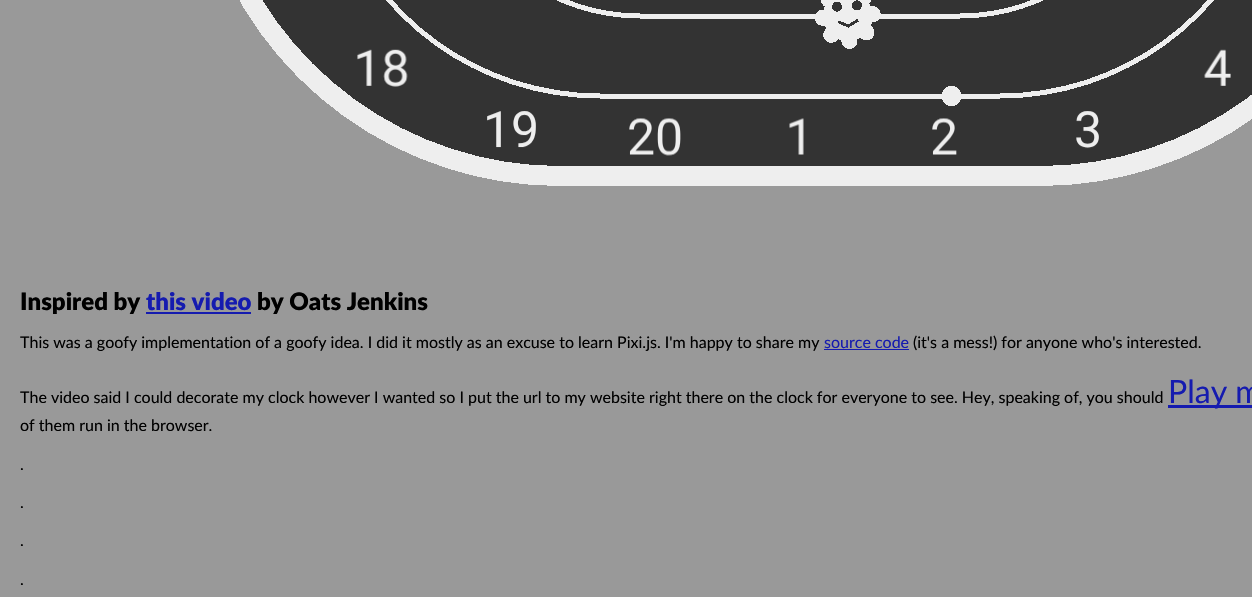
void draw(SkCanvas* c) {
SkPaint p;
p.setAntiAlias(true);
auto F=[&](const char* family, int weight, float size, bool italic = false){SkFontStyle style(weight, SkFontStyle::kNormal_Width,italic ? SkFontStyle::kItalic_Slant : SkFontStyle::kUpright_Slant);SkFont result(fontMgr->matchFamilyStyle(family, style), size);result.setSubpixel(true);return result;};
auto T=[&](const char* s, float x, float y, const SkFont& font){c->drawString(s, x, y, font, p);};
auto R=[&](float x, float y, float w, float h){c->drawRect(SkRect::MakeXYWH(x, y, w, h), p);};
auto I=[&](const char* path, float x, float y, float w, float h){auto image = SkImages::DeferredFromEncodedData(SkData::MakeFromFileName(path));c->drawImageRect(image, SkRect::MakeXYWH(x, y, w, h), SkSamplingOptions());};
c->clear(0xff999999);
I("1.png",0,0,1252,266);
auto f1 = F("Lato",900,24);
p.setColor(0xff000000);
T("Inspired by",20,310,f1);
p.setColor(0xff151baf);
T("this video",146,310,f1);
R(146,312,105,2);
p.setColor(0xff000000);
T("by Oats Jenkins",257,310,f1);
auto f2 = F("Lato",400,16);
T("This was a goofy implementation of a goofy idea. I did it mostly as an excuse to learn Pixi.js. I'm happy to share my",20,348,f2);
p.setColor(0xff151baf);
T("source code",824,348,f2);
R(824,349,85,1);
p.setColor(0xff000000);
T("(it's a mess!) for anyone who's interested.",913,348,f2);
T("The video said I could decorate my clock however I wanted so I put the url to my website right there on the clock for everyone to see. Hey, speaking of, you should",20,403,f2);
p.setColor(0xff151baf);
R(1168,405,84,3);
auto f3 = F("Lato",400,32);
T("Play m",1168,403,f3);
p.setColor(0xff000000);
T("of them run in the browser.",20,431,f2);
T(".",20,470,f2);
T(".",20,508,f2);
T(".",20,546,f2);
T(".",20,585,f2);
}
